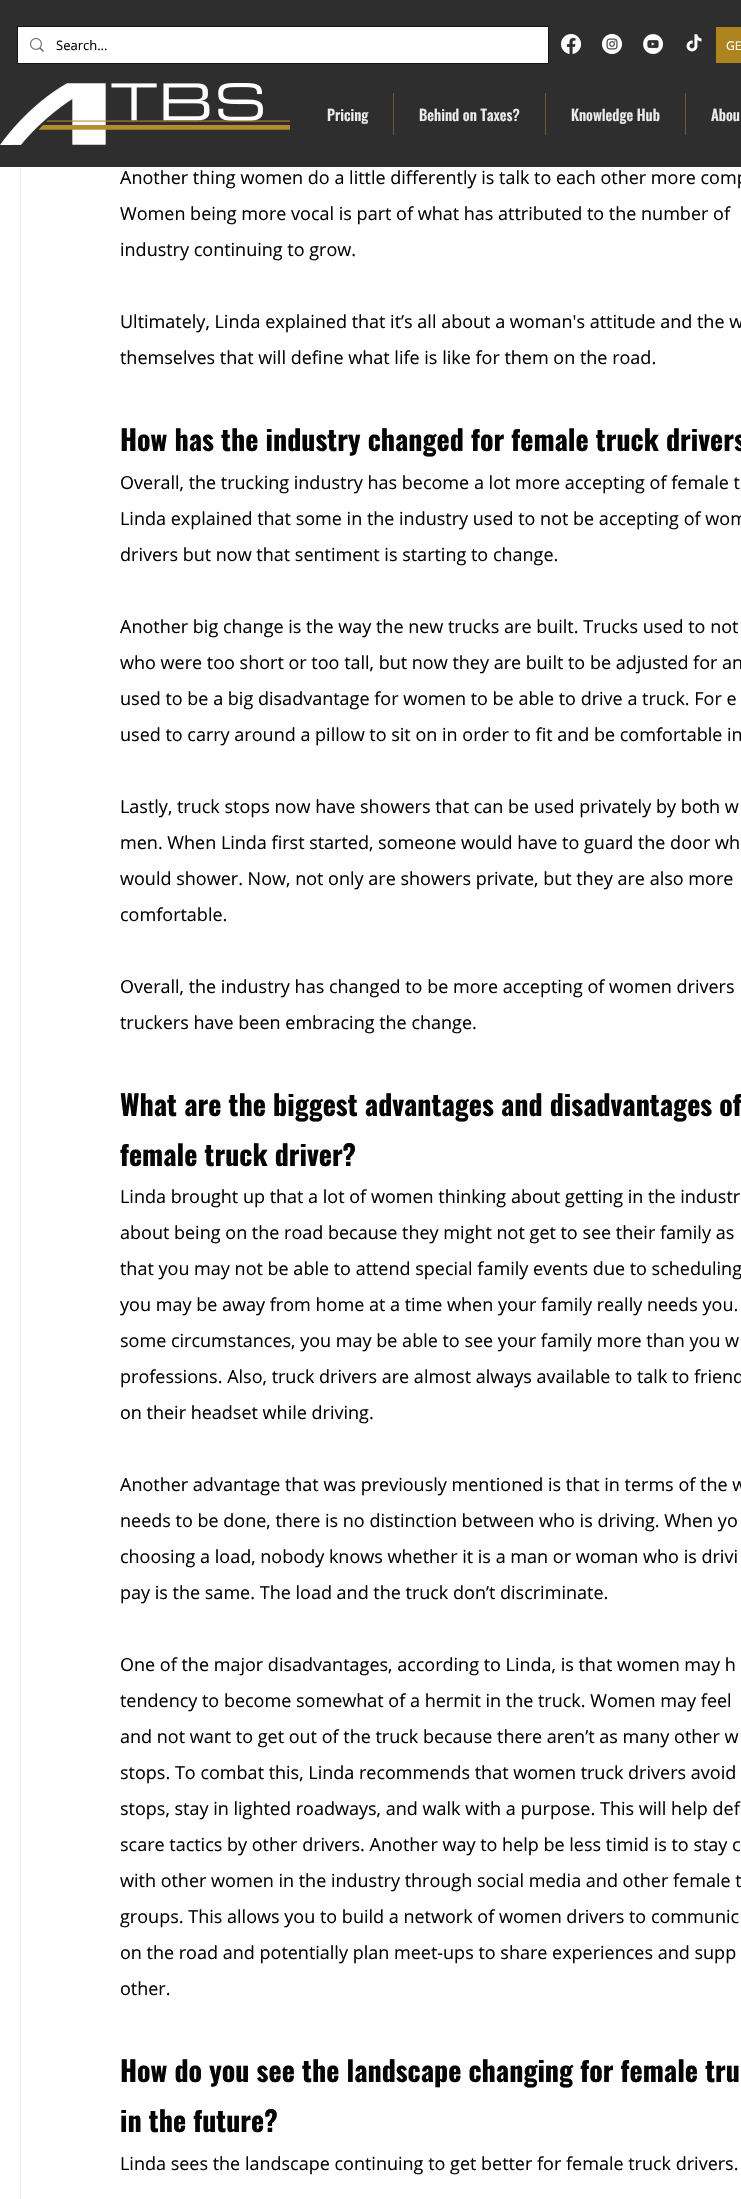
void draw(SkCanvas* c) {
SkPaint p;
p.setAntiAlias(true);
auto F=[&](const char* family, int weight, float size, bool italic = false){SkFontStyle style(weight, SkFontStyle::kNormal_Width,italic ? SkFontStyle::kItalic_Slant : SkFontStyle::kUpright_Slant);SkFont result(fontMgr->matchFamilyStyle(family, style), size);result.setSubpixel(true);return result;};
auto T=[&](const char* s, float x, float y, const SkFont& font){c->drawString(s, x, y, font, p);};
auto R=[&](float x, float y, float w, float h){c->drawRect(SkRect::MakeXYWH(x, y, w, h), p);};
auto I=[&](const char* path, float x, float y, float w, float h){auto image = SkImages::DeferredFromEncodedData(SkData::MakeFromFileName(path));c->drawImageRect(image, SkRect::MakeXYWH(x, y, w, h), SkSamplingOptions());};
c->clear(0xffffffff);
p.setStroke(true);
p.setStrokeWidth(1);
p.setColor(0xfff1f1f1);
c->drawRect(SkRect::MakeXYWH(20.5,-.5,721,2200),p);
p.setStroke(false);
p.setColor(0xff2f2e2e);
R(0,0,741,167);
p.setStroke(true);
p.setColor(0xff161515);
c->drawRect(SkRect::MakeXYWH(17.5,26.5,531,37),p);
p.setStroke(false);
p.setColor(0xffffffff);
R(18,27,530,36);
I("1.png",30,38,14,14);
auto f1 = F("Open Sans",400,13);
p.setColor(0xff050505);
T("Search...",56,50,f1);
I("2.png",561,34,20,20);
I("3.png",602,34,20,20);
I("4.png",643,34,20,20);
I("5.png",686,34,16,18);
p.setColor(0xffad841f);
R(716,27,25,36);
auto f2 = F("Open Sans",400,12);
p.setColor(0xffffffff);
T("GE",726,50,f2);
I("6.png",0,83,290,62);
auto f3 = F("Oswald",500,15);
p.setColor(0xffececec);
T("Pricing",327,121,f3);
p.setColor(0xff6e5927);
R(393,93,1,42);
p.setColor(0xffececec);
T("Behind on Taxes?",419,121,f3);
p.setColor(0xff6e5927);
R(545,93,1,42);
p.setColor(0xffececec);
T("Knowledge Hub",571,121,f3);
p.setColor(0xff6e5927);
R(685,93,1,42);
p.setColor(0xffececec);
T("Abou",711,121,f3);
auto f4 = F("Open Sans",400,18);
p.setColor(0xff050505);
T("Another thing women do a little differently is talk to each other more comp",120,184,f4);
T("Women being more vocal is part of what has attributed to the number of",120,220,f4);
T("industry continuing to grow.",120,256,f4);
T("Ultimately, Linda explained that it’s all about a woman's attitude and the w",120,328,f4);
T("themselves that will define what life is like for them on the road.",120,364,f4);
auto f5 = F("Oswald",700,28);
T("How has the industry changed for female truck drivers",120,451,f5);
T("Overall, the trucking industry has become a lot more accepting of female t",120,489,f4);
T("Linda explained that some in the industry used to not be accepting of wom",120,525,f4);
T("drivers but now that sentiment is starting to change.",120,561,f4);
T("Another big change is the way the new trucks are built. Trucks used to not",120,633,f4);
T("who were too short or too tall, but now they are built to be adjusted for an",120,669,f4);
T("used to be a big disadvantage for women to be able to drive a truck. For e",120,705,f4);
T("used to carry around a pillow to sit on in order to fit and be comfortable in",120,741,f4);
T("Lastly, truck stops now have showers that can be used privately by both w",120,813,f4);
T("men. When Linda first started, someone would have to guard the door wh",120,849,f4);
T("would shower. Now, not only are showers private, but they are also more",120,885,f4);
T("comfortable.",120,921,f4);
T("Overall, the industry has changed to be more accepting of women drivers",120,993,f4);
T("truckers have been embracing the change.",120,1029,f4);
T("What are the biggest advantages and disadvantages of",120,1116,f5);
T("female truck driver?",120,1166,f5);
T("Linda brought up that a lot of women thinking about getting in the industr",120,1203,f4);
T("about being on the road because they might not get to see their family as",120,1239,f4);
T("that you may not be able to attend special family events due to scheduling",120,1275,f4);
T("you may be away from home at a time when your family really needs you.",120,1311,f4);
T("some circumstances, you may be able to see your family more than you w",120,1347,f4);
T("professions. Also, truck drivers are almost always available to talk to friend",120,1383,f4);
T("on their headset while driving.",120,1419,f4);
T("Another advantage that was previously mentioned is that in terms of the w",120,1491,f4);
T("needs to be done, there is no distinction between who is driving. When yo",120,1527,f4);
T("choosing a load, nobody knows whether it is a man or woman who is drivi",120,1563,f4);
T("pay is the same. The load and the truck don’t discriminate.",120,1599,f4);
T("One of the major disadvantages, according to Linda, is that women may h",120,1671,f4);
T("tendency to become somewhat of a hermit in the truck. Women may feel",120,1707,f4);
T("and not want to get out of the truck because there aren’t as many other w",120,1743,f4);
T("stops. To combat this, Linda recommends that women truck drivers avoid",120,1779,f4);
T("stops, stay in lighted roadways, and walk with a purpose. This will help def",120,1815,f4);
T("scare tactics by other drivers. Another way to help be less timid is to stay c",120,1851,f4);
T("with other women in the industry through social media and other female t",120,1887,f4);
T("groups. This allows you to build a network of women drivers to communic",120,1923,f4);
T("on the road and potentially plan meet-ups to share experiences and supp",120,1959,f4);
T("other.",120,1995,f4);
T("How do you see the landscape changing for female tru",120,2082,f5);
T("in the future?",120,2132,f5);
T("Linda sees the landscape continuing to get better for female truck drivers.",120,2170,f4);
}
